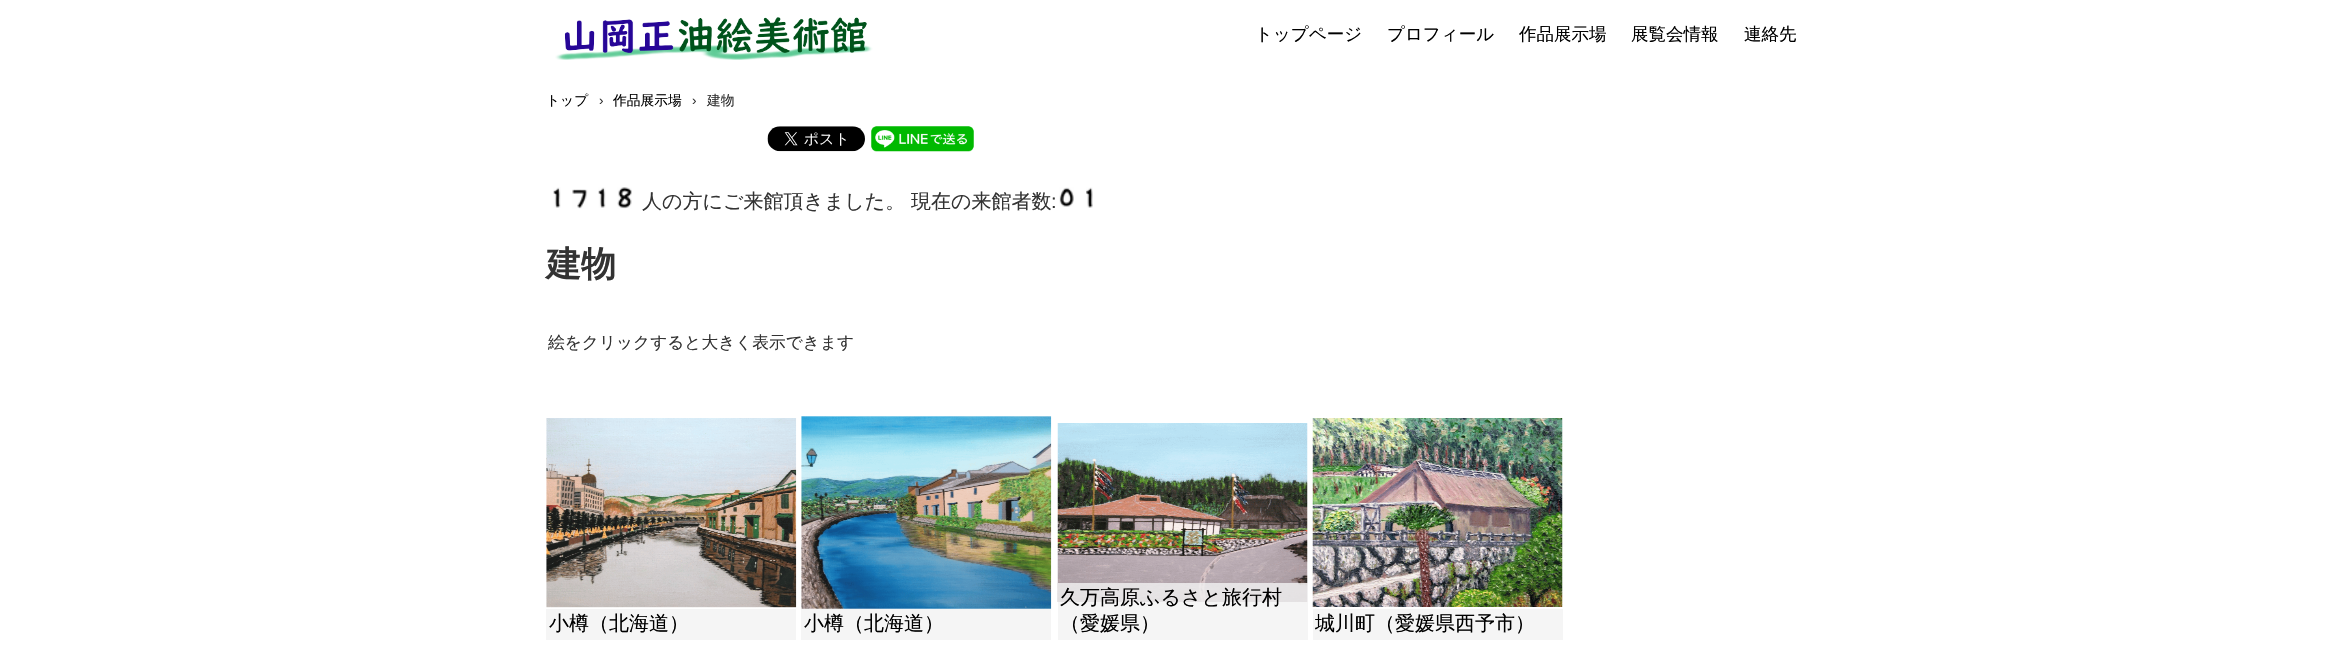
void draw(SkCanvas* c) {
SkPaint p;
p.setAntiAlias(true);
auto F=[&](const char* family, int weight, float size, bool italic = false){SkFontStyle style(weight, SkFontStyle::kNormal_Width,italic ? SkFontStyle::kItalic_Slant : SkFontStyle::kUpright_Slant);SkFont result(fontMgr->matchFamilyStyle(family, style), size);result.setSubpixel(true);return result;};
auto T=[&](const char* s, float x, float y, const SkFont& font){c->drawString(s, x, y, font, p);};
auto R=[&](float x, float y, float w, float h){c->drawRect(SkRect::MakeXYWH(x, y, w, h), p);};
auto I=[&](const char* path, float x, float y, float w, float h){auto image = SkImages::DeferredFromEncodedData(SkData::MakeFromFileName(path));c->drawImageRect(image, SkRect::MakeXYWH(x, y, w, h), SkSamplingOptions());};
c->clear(0xffffffff);
I("1.png",555,17,318,43);
auto f1 = F("WenQuanYi Zen Hei",500,17.5);
p.setColor(0xff000000);
T("トップページ",1255,40,f1);
T("プロフィール",1387,40,f1);
T("作品展示場",1519,40,f1);
T("展覧会情報",1631,40,f1);
T("連絡先",1744,40,f1);
auto f2 = F("WenQuanYi Zen Hei",500,13.75);
T("トップ",546,105,f2);
auto f3 = F("Liberation Sans",400,13.75);
p.setColor(0xff333333);
T("›",599,105,f3);
p.setColor(0xff000000);
T("作品展示場",613,105,f2);
p.setColor(0xff333333);
T("›",692,105,f3);
T("建物",707,105,f2);
I("2.png",767,126,98,26);
I("3.png",871,126,103,26);
I("4.png",553,187,8,21);
I("5.png",572,189,16,20);
I("4.png",598,187,8,21);
I("6.png",617,187,15,22);
auto f4 = F("WenQuanYi Zen Hei",500,20);
T("人の方にご来館頂きました。",642,208,f4);
T("現在の来館者数",911,208,f4);
auto f5 = F("Liberation Sans",400,20);
T(":",1051,208,f5);
I("7.png",1059,187,15,20);
I("8.png",1086,187,7,21);
auto f6 = F("WenQuanYi Zen Hei",700,35);
T("建物",546,276,f6);
auto f7 = F("WenQuanYi Zen Hei",500,16.7);
T("絵をクリックすると大きく表示できます",548,348,f7);
I("9.png",546,418,251,190);
p.setColor(0xfff5f5f5);
R(546,609,250,31);
p.setColor(0xff000000);
T("小樽（北海道）",549,630,f4);
I("10.png",801,416,251,193);
p.setColor(0xfff5f5f5);
R(801,609,250,31);
p.setColor(0xff000000);
T("小樽（北海道）",804,630,f4);
I("11.png",1057,423,251,179);
p.setColor(0xccf2f2f2);
R(1058,583,250,57);
p.setColor(0xff000000);
T("久万高原ふるさと旅行村",1060,604,f4);
T("（愛媛県）",1060,630,f4);
I("12.png",1312,418,251,189);
p.setColor(0xfff5f5f5);
R(1313,609,250,31);
p.setColor(0xff000000);
T("城川町（愛媛県西予市）",1315,630,f4);
}
